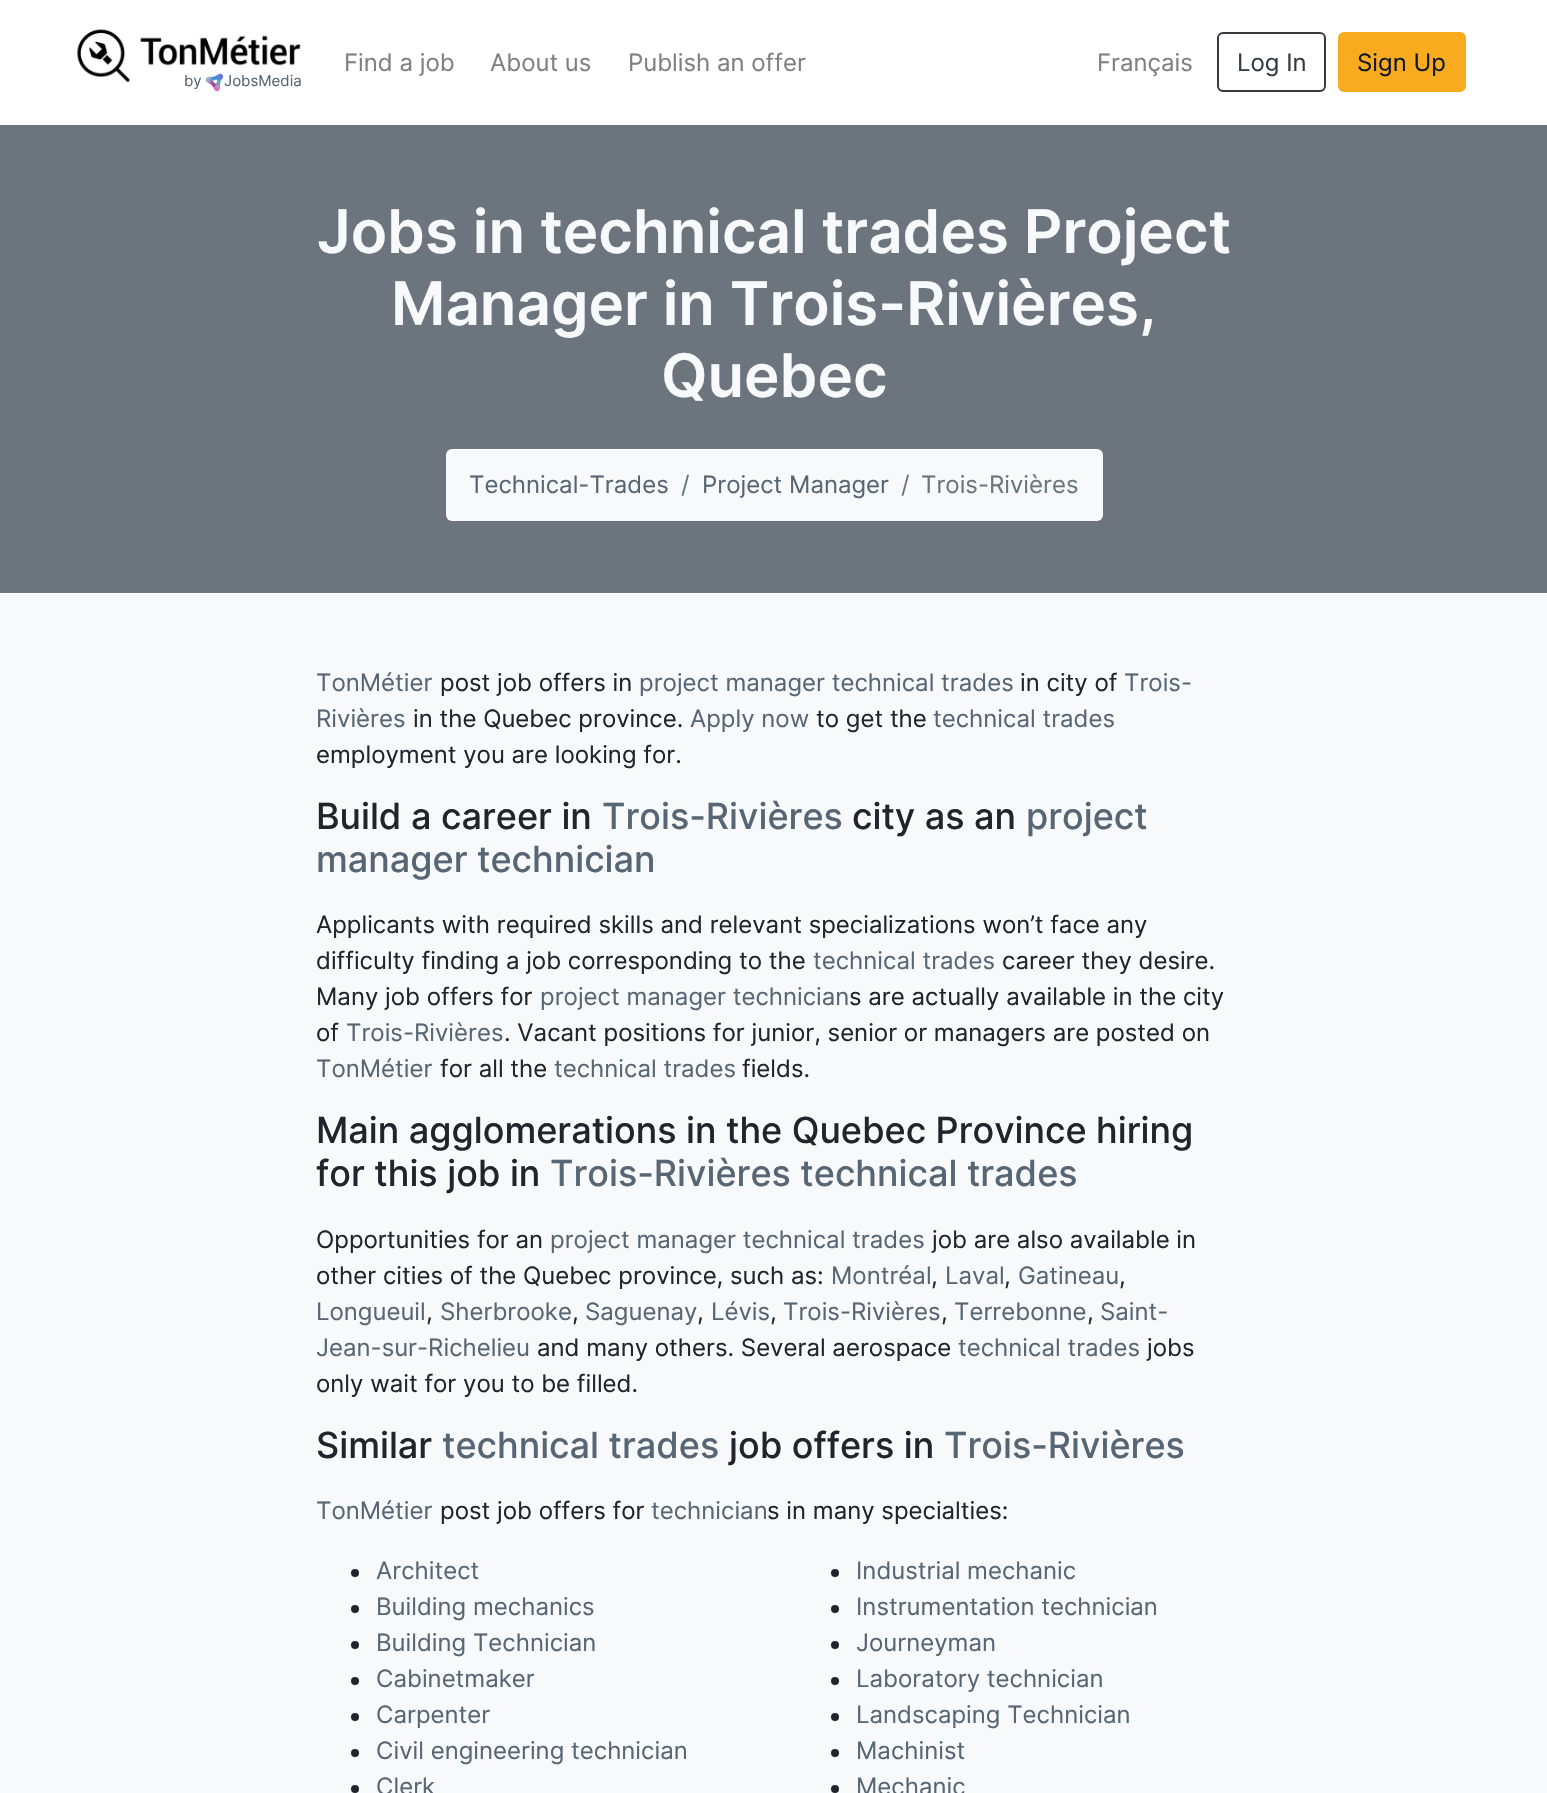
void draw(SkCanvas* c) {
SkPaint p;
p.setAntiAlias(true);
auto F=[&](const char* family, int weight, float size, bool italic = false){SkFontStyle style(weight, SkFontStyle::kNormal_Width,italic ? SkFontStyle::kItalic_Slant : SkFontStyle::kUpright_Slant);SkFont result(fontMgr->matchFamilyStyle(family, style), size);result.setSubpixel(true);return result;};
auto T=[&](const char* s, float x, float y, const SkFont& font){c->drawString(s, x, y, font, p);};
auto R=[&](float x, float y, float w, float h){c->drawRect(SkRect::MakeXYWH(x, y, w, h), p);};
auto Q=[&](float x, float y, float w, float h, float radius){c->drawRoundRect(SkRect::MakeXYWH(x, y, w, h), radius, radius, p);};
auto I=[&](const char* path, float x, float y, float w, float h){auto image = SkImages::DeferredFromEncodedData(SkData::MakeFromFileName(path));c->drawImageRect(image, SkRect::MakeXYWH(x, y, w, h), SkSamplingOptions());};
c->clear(0xffffffff);
auto f1 = F("Inter",400,24);
p.setColor(0xff808080);
T("Find a job",344,71,f1);
T("About us",490,71,f1);
T("Publish an offer",628,71,f1);
T("Français",1097,71,f1);
p.setStroke(true);
p.setStrokeWidth(2);
p.setColor(0xff343a40);
c->drawRoundRect(SkRect::MakeXYWH(1218,33,107,58),5,5,p);
p.setStroke(false);
T("Log In",1237,71,f1);
p.setColor(0xfff8ab1f);
c->drawRoundRect(SkRect::MakeXYWH(1339,33,126,58),5,5,p);
p.setStroke(true);
c->drawRoundRect(SkRect::MakeXYWH(1339,33,126,58),5,5,p);
p.setStroke(false);
p.setColor(0xff0f172a);
T("Sign Up",1357,71,f1);
I("1.png",77,29,224,54);
auto f2 = F("Inter",400,15);
p.setColor(0xff576675);
T("by",184,86,f2);
I("2.png",205,73,19,19);
T("JobsMedia",224,86,f2);
p.setColor(0xff6c757d);
R(0,125,1547,468);
auto f3 = F("Inter",600,60);
p.setColor(0xfff8f9fa);
T("Jobs in technical trades Project",317,253,f3);
T("Manager in Trois-Rivières,",391,325,f3);
T("Quebec",661,397,f3);
Q(446,449,657,72,6);
p.setColor(0xff576675);
T("Technical-Trades",469,493,f1);
p.setColor(0xff6c757d);
T("/",681,493,f1);
p.setColor(0xff576675);
T("Project Manager",702,493,f1);
p.setColor(0xff6c757d);
T("/",901,493,f1);
T("Trois-Rivières",921,493,f1);
p.setColor(0xfff8f9fa);
R(0,593,1547,1200);
p.setColor(0xff576675);
T("TonMétier",316,691,f1);
p.setColor(0xff212529);
T("post job offers in",440,691,f1);
p.setColor(0xff576675);
T("project manager technical trades",639,691,f1);
p.setColor(0xff212529);
T("in city of",1020,691,f1);
p.setColor(0xff576675);
T("Trois-",1124,691,f1);
T("Rivières",316,727,f1);
p.setColor(0xff212529);
T("in the Quebec province.",413,727,f1);
p.setColor(0xff576675);
T("Apply now",690,727,f1);
p.setColor(0xff212529);
T("to get the",816,727,f1);
p.setColor(0xff576675);
T("technical trades",933,727,f1);
p.setColor(0xff212529);
T("employment you are looking for.",316,763,f1);
auto f4 = F("Inter",500,36);
T("Build a career in",316,829,f4);
p.setColor(0xff576675);
T("Trois-Rivières",602,829,f4);
p.setColor(0xff212529);
T("city as an",852,829,f4);
p.setColor(0xff576675);
T("project",1026,829,f4);
T("manager technician",316,872,f4);
p.setColor(0xff212529);
T("Applicants with required skills and relevant specializations won’t face any",316,933,f1);
T("difficulty finding a job corresponding to the",316,969,f1);
p.setColor(0xff576675);
T("technical trades",813,969,f1);
p.setColor(0xff212529);
T("career they desire.",1002,969,f1);
T("Many job offers for",316,1005,f1);
p.setColor(0xff576675);
T("project manager technician",540,1005,f1);
p.setColor(0xff212529);
T("s are actually available in the city",849,1005,f1);
T("of",316,1041,f1);
p.setColor(0xff576675);
T("Trois-Rivières",346,1041,f1);
p.setColor(0xff212529);
T(". Vacant positions for junior, senior or managers are posted on",504,1041,f1);
p.setColor(0xff576675);
T("TonMétier",316,1077,f1);
p.setColor(0xff212529);
T("for all the",440,1077,f1);
p.setColor(0xff576675);
T("technical trades",554,1077,f1);
p.setColor(0xff212529);
T("fields.",742,1077,f1);
T("Main agglomerations in the Quebec Province hiring",316,1143,f4);
T("for this job in",316,1186,f4);
p.setColor(0xff576675);
T("Trois-Rivières technical trades",550,1186,f4);
p.setColor(0xff212529);
T("Opportunities for an",316,1248,f1);
p.setColor(0xff576675);
T("project manager technical trades",550,1248,f1);
p.setColor(0xff212529);
T("job are also available in",932,1248,f1);
T("other cities of the Quebec province, such as:",316,1284,f1);
p.setColor(0xff576675);
T("Montréal",831,1284,f1);
p.setColor(0xff212529);
T(",",931,1284,f1);
p.setColor(0xff576675);
T("Laval",945,1284,f1);
p.setColor(0xff212529);
T(",",1004,1284,f1);
p.setColor(0xff576675);
T("Gatineau",1018,1284,f1);
p.setColor(0xff212529);
T(",",1119,1284,f1);
p.setColor(0xff576675);
T("Longueuil",316,1320,f1);
p.setColor(0xff212529);
T(",",426,1320,f1);
p.setColor(0xff576675);
T("Sherbrooke",440,1320,f1);
p.setColor(0xff212529);
T(",",572,1320,f1);
p.setColor(0xff576675);
T("Saguenay",585,1320,f1);
p.setColor(0xff212529);
T(",",697,1320,f1);
p.setColor(0xff576675);
T("Lévis",711,1320,f1);
p.setColor(0xff212529);
T(",",770,1320,f1);
p.setColor(0xff576675);
T("Trois-Rivières",783,1320,f1);
p.setColor(0xff212529);
T(",",941,1320,f1);
p.setColor(0xff576675);
T("Terrebonne",954,1320,f1);
p.setColor(0xff212529);
T(",",1087,1320,f1);
p.setColor(0xff576675);
T("Saint-",1100,1320,f1);
T("Jean-sur-Richelieu",316,1356,f1);
p.setColor(0xff212529);
T("and many others. Several aerospace",537,1356,f1);
p.setColor(0xff576675);
T("technical trades",958,1356,f1);
p.setColor(0xff212529);
T("jobs",1147,1356,f1);
T("only wait for you to be filled.",316,1392,f1);
T("Similar",316,1458,f4);
p.setColor(0xff576675);
T("technical trades",442,1458,f4);
p.setColor(0xff212529);
T("job offers in",729,1458,f4);
p.setColor(0xff576675);
T("Trois-Rivières",944,1458,f4);
T("TonMétier",316,1519,f1);
p.setColor(0xff212529);
T("post job offers for",440,1519,f1);
p.setColor(0xff576675);
T("technician",651,1519,f1);
p.setColor(0xff212529);
T("s in many specialties:",767,1519,f1);
c->drawCircle(355,1573,4,p);
p.setColor(0xff576675);
T("Architect",376,1579,f1);
p.setColor(0xff212529);
c->drawCircle(355,1609,4,p);
p.setColor(0xff576675);
T("Building mechanics",376,1615,f1);
p.setColor(0xff212529);
c->drawCircle(355,1645,4,p);
p.setColor(0xff576675);
T("Building Technician",376,1651,f1);
p.setColor(0xff212529);
c->drawCircle(355,1681,4,p);
p.setColor(0xff576675);
T("Cabinetmaker",376,1687,f1);
p.setColor(0xff212529);
c->drawCircle(355,1717,4,p);
p.setColor(0xff576675);
T("Carpenter",376,1723,f1);
p.setColor(0xff212529);
c->drawCircle(355,1753,4,p);
p.setColor(0xff576675);
T("Civil engineering technician",376,1759,f1);
p.setColor(0xff212529);
c->drawCircle(355,1789,4,p);
p.setColor(0xff576675);
T("Clerk",376,1795,f1);
p.setColor(0xff212529);
c->drawCircle(835,1573,4,p);
p.setColor(0xff576675);
T("Industrial mechanic",856,1579,f1);
p.setColor(0xff212529);
c->drawCircle(835,1609,4,p);
p.setColor(0xff576675);
T("Instrumentation technician",856,1615,f1);
p.setColor(0xff212529);
c->drawCircle(835,1645,4,p);
p.setColor(0xff576675);
T("Journeyman",856,1651,f1);
p.setColor(0xff212529);
c->drawCircle(835,1681,4,p);
p.setColor(0xff576675);
T("Laboratory technician",856,1687,f1);
p.setColor(0xff212529);
c->drawCircle(835,1717,4,p);
p.setColor(0xff576675);
T("Landscaping Technician",856,1723,f1);
p.setColor(0xff212529);
c->drawCircle(835,1753,4,p);
p.setColor(0xff576675);
T("Machinist",856,1759,f1);
p.setColor(0xff212529);
c->drawCircle(835,1789,4,p);
p.setColor(0xff576675);
T("Mechanic",856,1795,f1);
}
